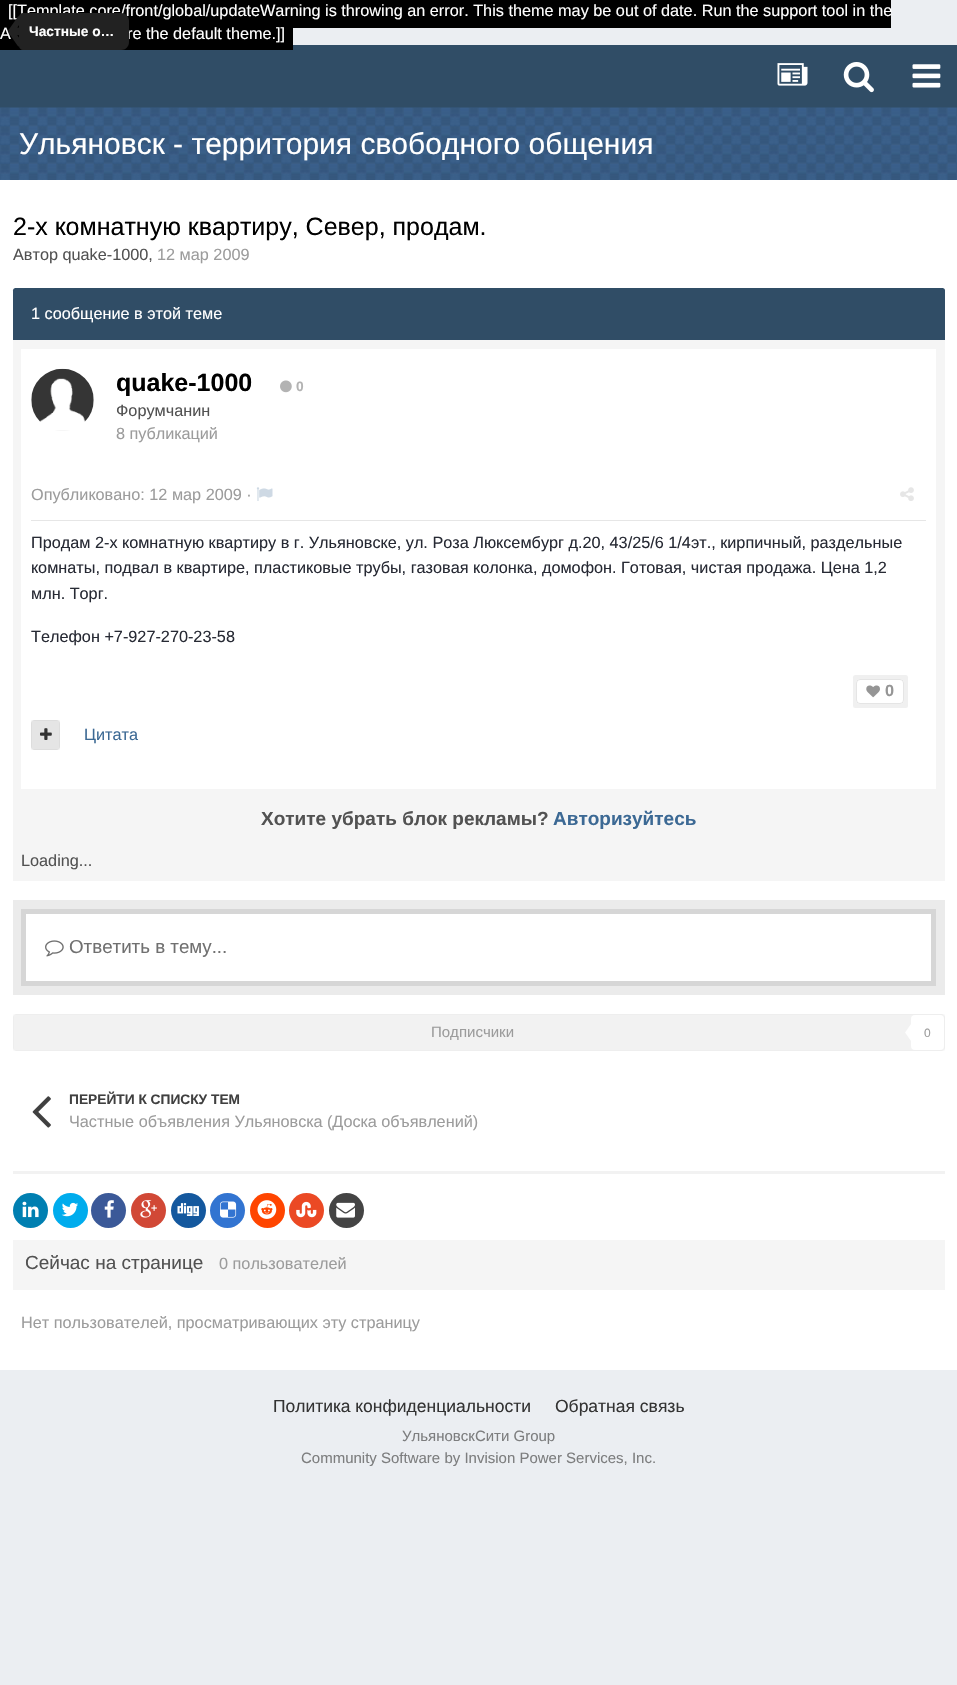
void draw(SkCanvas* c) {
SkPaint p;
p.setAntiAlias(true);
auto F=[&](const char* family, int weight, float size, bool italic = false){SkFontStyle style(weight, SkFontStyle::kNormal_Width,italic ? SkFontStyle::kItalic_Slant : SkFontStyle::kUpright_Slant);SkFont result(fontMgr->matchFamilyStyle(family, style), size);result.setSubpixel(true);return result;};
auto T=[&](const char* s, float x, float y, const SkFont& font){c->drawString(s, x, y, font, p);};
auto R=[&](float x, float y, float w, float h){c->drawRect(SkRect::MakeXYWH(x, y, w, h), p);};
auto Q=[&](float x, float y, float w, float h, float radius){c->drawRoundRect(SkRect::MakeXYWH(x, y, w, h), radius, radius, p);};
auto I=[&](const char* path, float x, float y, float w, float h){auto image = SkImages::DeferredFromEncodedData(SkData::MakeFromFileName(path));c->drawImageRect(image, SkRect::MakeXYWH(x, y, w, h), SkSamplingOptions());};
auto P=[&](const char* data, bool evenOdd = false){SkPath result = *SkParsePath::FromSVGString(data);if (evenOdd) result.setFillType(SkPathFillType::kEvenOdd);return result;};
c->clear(0xffebeef2);
p.setColor(0xff000000);
R(0,0,891,28);
auto f1 = F("Liberation Sans",400,16.25);
p.setColor(0xffffffff);
T("[[Template core/front/global/updateWarning is throwing an error. This theme may be out of date. Run the support tool in the",8,16,f1);
p.setColor(0xff304d66);
R(0,45,957,63);
p.setColor(0xff000000);
R(0,28,293,22);
p.setColor(0xffffffff);
T("A",0,39,f1);
T("re the default theme.]]",127,39,f1);
p.setColor(0xff222222);
c->drawPath(P("M23 13h98c4.5 0 8 3.5 8 8v21c0 4.5-3.5 8-8 8h-98c-2 0-4-2-4-4v-29c0-2 2-4 4-4z"),p);
I("1.png",8,16,11,31);
auto f2 = F("Liberation Sans",700,13.75);
p.setColor(0xffffffff);
T("Частные о…",29,36,f2);
I("2.png",777,63,31,23);
I("3.png",843,62,31,31);
I("4.png",912,64,29,24);
I("5.png",0,107,957,73);
auto f3 = F("Liberation Sans",400,30);
T("Ульяновск - территория свободного общения",19,154,f3);
R(0,180,957,1190);
auto f4 = F("Liberation Sans",400,25);
p.setColor(0xff000000);
T("2-х комнатную квартиру, Север, продам.",13,235,f4);
p.setColor(0xff525252);
T("Автор quake-1000,",13,260,f1);
p.setColor(0xff9c9c9c);
T("12 мар 2009",157,260,f1);
p.setColor(0xff304d66);
c->drawPath(P("M15.5 288h927c1.5 0 2.5 1 2.5 2.5v49.5h-932v-49.5c0-1.5 1-2.5 2.5-2.5z"),p);
p.setColor(0xffffffff);
T("1 сообщение в этой теме",31,319,f1);
p.setColor(0xfff5f5f5);
R(13,340,932,541);
p.setColor(0xffffffff);
R(21,349,915,440);
c->save();
c->clipRect(SkRect::MakeXYWH(116,369,807,27));
auto f5 = F("Liberation Sans",700,25);
p.setColor(0xff000000);
T("quake-1000",116,391,f5);
c->restore();
I("6.png",280,380,12,13);
p.setColor(0xffb3b3b3);
T("0",296,391,f2);
I("7.png",31,368,63,63);
p.setColor(0xff525252);
T("Форумчанин",116,416,f1);
p.setColor(0xff9c9c9c);
T("8 публикаций",116,439,f1);
p.setColor(0xffe6e6e6);
R(31,520,895,1);
p.setColor(0xff9c9c9c);
T("Опубликовано: 12 мар 2009 ·",31,500,f1);
I("8.png",256,487,17,14);
I("9.png",900,487,14,14);
p.setColor(0xff272a34);
T("Продам 2-х комнатную квартиру в г. Ульяновске, ул. Роза Люксембург д.20, 43/25/6 1/4эт., кирпичный, раздельные",31,548,f1);
T("комнаты, подвал в квартире, пластиковые трубы, газовая колонка, домофон. Готовая, чистая продажа. Цена 1,2",31,573,f1);
T("млн. Торг.",31,599,f1);
T("Телефон +7-927-270-23-58",31,642,f1);
p.setColor(0xfff0f0f0);
Q(853,675,55,33,2.5);
p.setColor(0xffffffff);
Q(856,679,48,25,4);
p.setStroke(true);
p.setStrokeWidth(1);
p.setColor(0x1a000000);
c->drawRoundRect(SkRect::MakeXYWH(856.5,679.5,47,24),3.5,3.5,p);
I("10.png",866,685,14,13);
auto f6 = F("Liberation Sans",700,16.25);
p.setStroke(false);
p.setColor(0xff959595);
T("0",885,696,f6);
p.setColor(0xffe5e5e5);
Q(31,720,29,30,4);
p.setStroke(true);
p.setColor(0x08000000);
c->drawRect(SkRect::MakeXYWH(31.5,720.5,28,29),p);
I("11.png",40,728,12,12);
p.setStroke(false);
p.setColor(0xff3c6994);
T("Цитата",84,740,f1);
auto f7 = F("Liberation Sans",700,19);
p.setColor(0xff525252);
T("Хотите убрать блок рекламы?",261,825,f7);
p.setColor(0xff3c6994);
T("Авторизуйтесь",553,825,f7);
p.setColor(0xff525252);
T("Loading...",21,866,f1);
p.setColor(0xffebebeb);
R(13,900,932,95);
p.setColor(0xffd6d6d6);
R(21,909,915,77);
p.setColor(0xffffffff);
R(26,914,905,67);
I("12.png",45,940,19,17);
auto f8 = F("Liberation Sans",400,18.75);
p.setColor(0xff707070);
T("Ответить в тему...",69,953,f8);
p.setColor(0xfff2f2f2);
Q(13,1014,932,37,4);
p.setStroke(true);
p.setColor(0x08808080);
c->drawRect(SkRect::MakeXYWH(13.5,1014.5,931,36),p);
auto f9 = F("Liberation Sans",400,15);
p.setStroke(false);
p.setColor(0xff9c9c9c);
T("Подписчики",431,1037,f9);
p.setColor(0xffffffff);
Q(911,1015,33,35,4);
c->drawPath(P("M911 1024v17l-6-8.5z"),p);
auto f10 = F("Liberation Sans",400,12);
p.setColor(0xff9c9c9c);
T("0",924,1037,f10);
I("13.png",32,1096,19,32);
p.setColor(0xff404040);
T("ПЕРЕЙТИ К СПИСКУ ТЕМ",69,1104,f2);
p.setColor(0xff9c9c9c);
T("Частные объявления Ульяновска (Доска объявлений)",69,1127,f1);
p.setColor(0xfff2f2f2);
R(13,1171,932,3);
p.setColor(0xff007fb1);
c->drawCircle(30.5,1210.5,17.5,p);
I("14.png",22,1201,17,17);
p.setColor(0xff00aced);
c->drawCircle(70.5,1210.5,17.5,p);
I("15.png",61,1202,17,15);
p.setColor(0xff3b5998);
c->drawCircle(108.5,1210.5,17.5,p);
I("16.png",104,1200,10,18);
p.setColor(0xffd14836);
c->drawCircle(148.5,1210.5,17.5,p);
I("17.png",140,1200,17,18);
p.setColor(0xff14589e);
c->drawCircle(188.5,1210.5,17.5,p);
I("18.png",177,1203,22,13);
p.setColor(0xff3274d1);
c->drawCircle(227.5,1210.5,17.5,p);
I("19.png",220,1201,17,17);
p.setColor(0xffff4500);
c->drawCircle(267.5,1210.5,17.5,p);
I("20.png",257,1200,20,19);
p.setColor(0xffeb4924);
c->drawCircle(306.5,1210.5,17.5,p);
I("21.png",296,1201,21,17);
p.setColor(0xff444444);
c->drawCircle(346.5,1210.5,17.5,p);
I("22.png",336,1202,19,16);
p.setColor(0xfff5f5f5);
R(13,1240,932,50);
auto f11 = F("Liberation Sans",400,19);
p.setColor(0xff525252);
T("Сейчас на странице",25,1269,f11);
p.setColor(0xff9c9c9c);
T("0 пользователей",219,1269,f1);
T("Нет пользователей, просматривающих эту страницу",21,1328,f1);
auto f12 = F("Liberation Sans",400,17.5);
p.setColor(0xff333333);
T("Политика конфиденциальности",273,1412,f12);
T("Обратная связь",555,1412,f12);
p.setColor(0xff7d7e7f);
T("УльяновскСити Group",402,1441,f9);
T("Community Software by Invision Power Services, Inc.",301,1463,f9);
}
